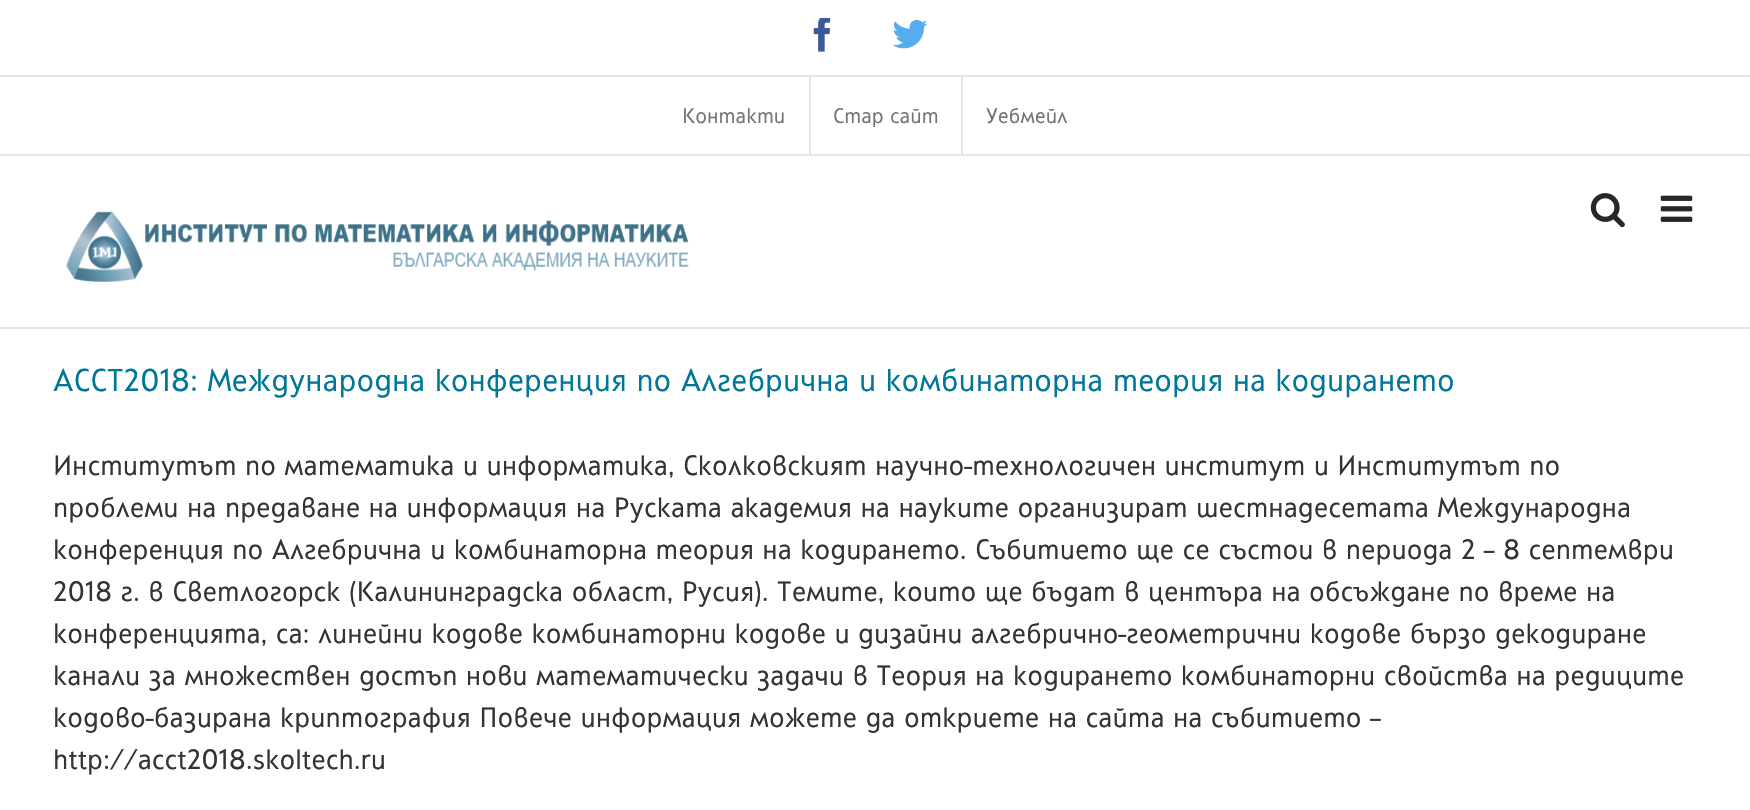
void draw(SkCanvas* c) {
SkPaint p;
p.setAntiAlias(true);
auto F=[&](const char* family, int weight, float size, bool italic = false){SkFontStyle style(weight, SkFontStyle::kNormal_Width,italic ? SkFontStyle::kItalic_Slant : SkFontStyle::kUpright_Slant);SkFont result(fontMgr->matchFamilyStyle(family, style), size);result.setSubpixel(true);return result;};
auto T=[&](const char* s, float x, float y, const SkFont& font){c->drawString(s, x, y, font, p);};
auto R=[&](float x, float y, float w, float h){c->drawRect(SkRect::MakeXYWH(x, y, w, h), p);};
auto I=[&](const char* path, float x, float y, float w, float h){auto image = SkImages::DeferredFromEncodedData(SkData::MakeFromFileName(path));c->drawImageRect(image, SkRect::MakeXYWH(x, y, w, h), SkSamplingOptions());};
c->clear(0xffffffff);
p.setColor(0xffe5e5e5);
R(0,154,1750,2);
R(0,75,1750,2);
I("1.png",813,18,18,34);
I("2.png",892,19,36,30);
auto f1 = F("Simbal",400,21);
p.setColor(0xff747474);
T("Контакти",682,123,f1);
p.setColor(0xffe5e5e5);
R(809,77,2,77);
p.setColor(0xff747474);
T("Стар сайт",833,123,f1);
p.setColor(0xffe5e5e5);
R(961,77,2,77);
p.setColor(0xff747474);
T("Уебмейл",986,123,f1);
p.setColor(0xffe5e5e5);
R(0,327,1750,2);
I("3.png",66,211,623,71);
I("4.png",1590,193,35,35);
I("5.png",1660,195,33,27);
auto f2 = F("Simbal",400,31.5);
p.setColor(0xff007799);
T("ACCT2018: Международна конференция по Алгебрична и комбинаторна теория на кодирането",53,391,f2);
auto f3 = F("Simbal",400,28);
p.setColor(0xff333333);
T("Институтът по математика и информатика, Сколковският научно-технологичен институт и Институтът по",53,475,f3);
T("проблеми на предаване на информация на Руската академия на науките организират шестнадесетата Международна",53,517,f3);
T("конференция по Алгебрична и комбинаторна теория на кодирането. Събитието ще се състои в периода 2 – 8 септември",53,559,f3);
T("2018 г. в Светлогорск (Калининградска област, Русия). Темите, които ще бъдат в центъра на обсъждане по време на",53,601,f3);
T("конференцията, са: линейни кодове комбинаторни кодове и дизайни алгебрично-геометрични кодове бързо декодиране",53,643,f3);
T("канали за множествен достъп нови математически задачи в Теория на кодирането комбинаторни свойства на редиците",53,685,f3);
T("кодово-базирана криптография Повече информация можете да откриете на сайта на събитието –",53,727,f3);
T("http://acct2018.skoltech.ru",53,769,f3);
}
